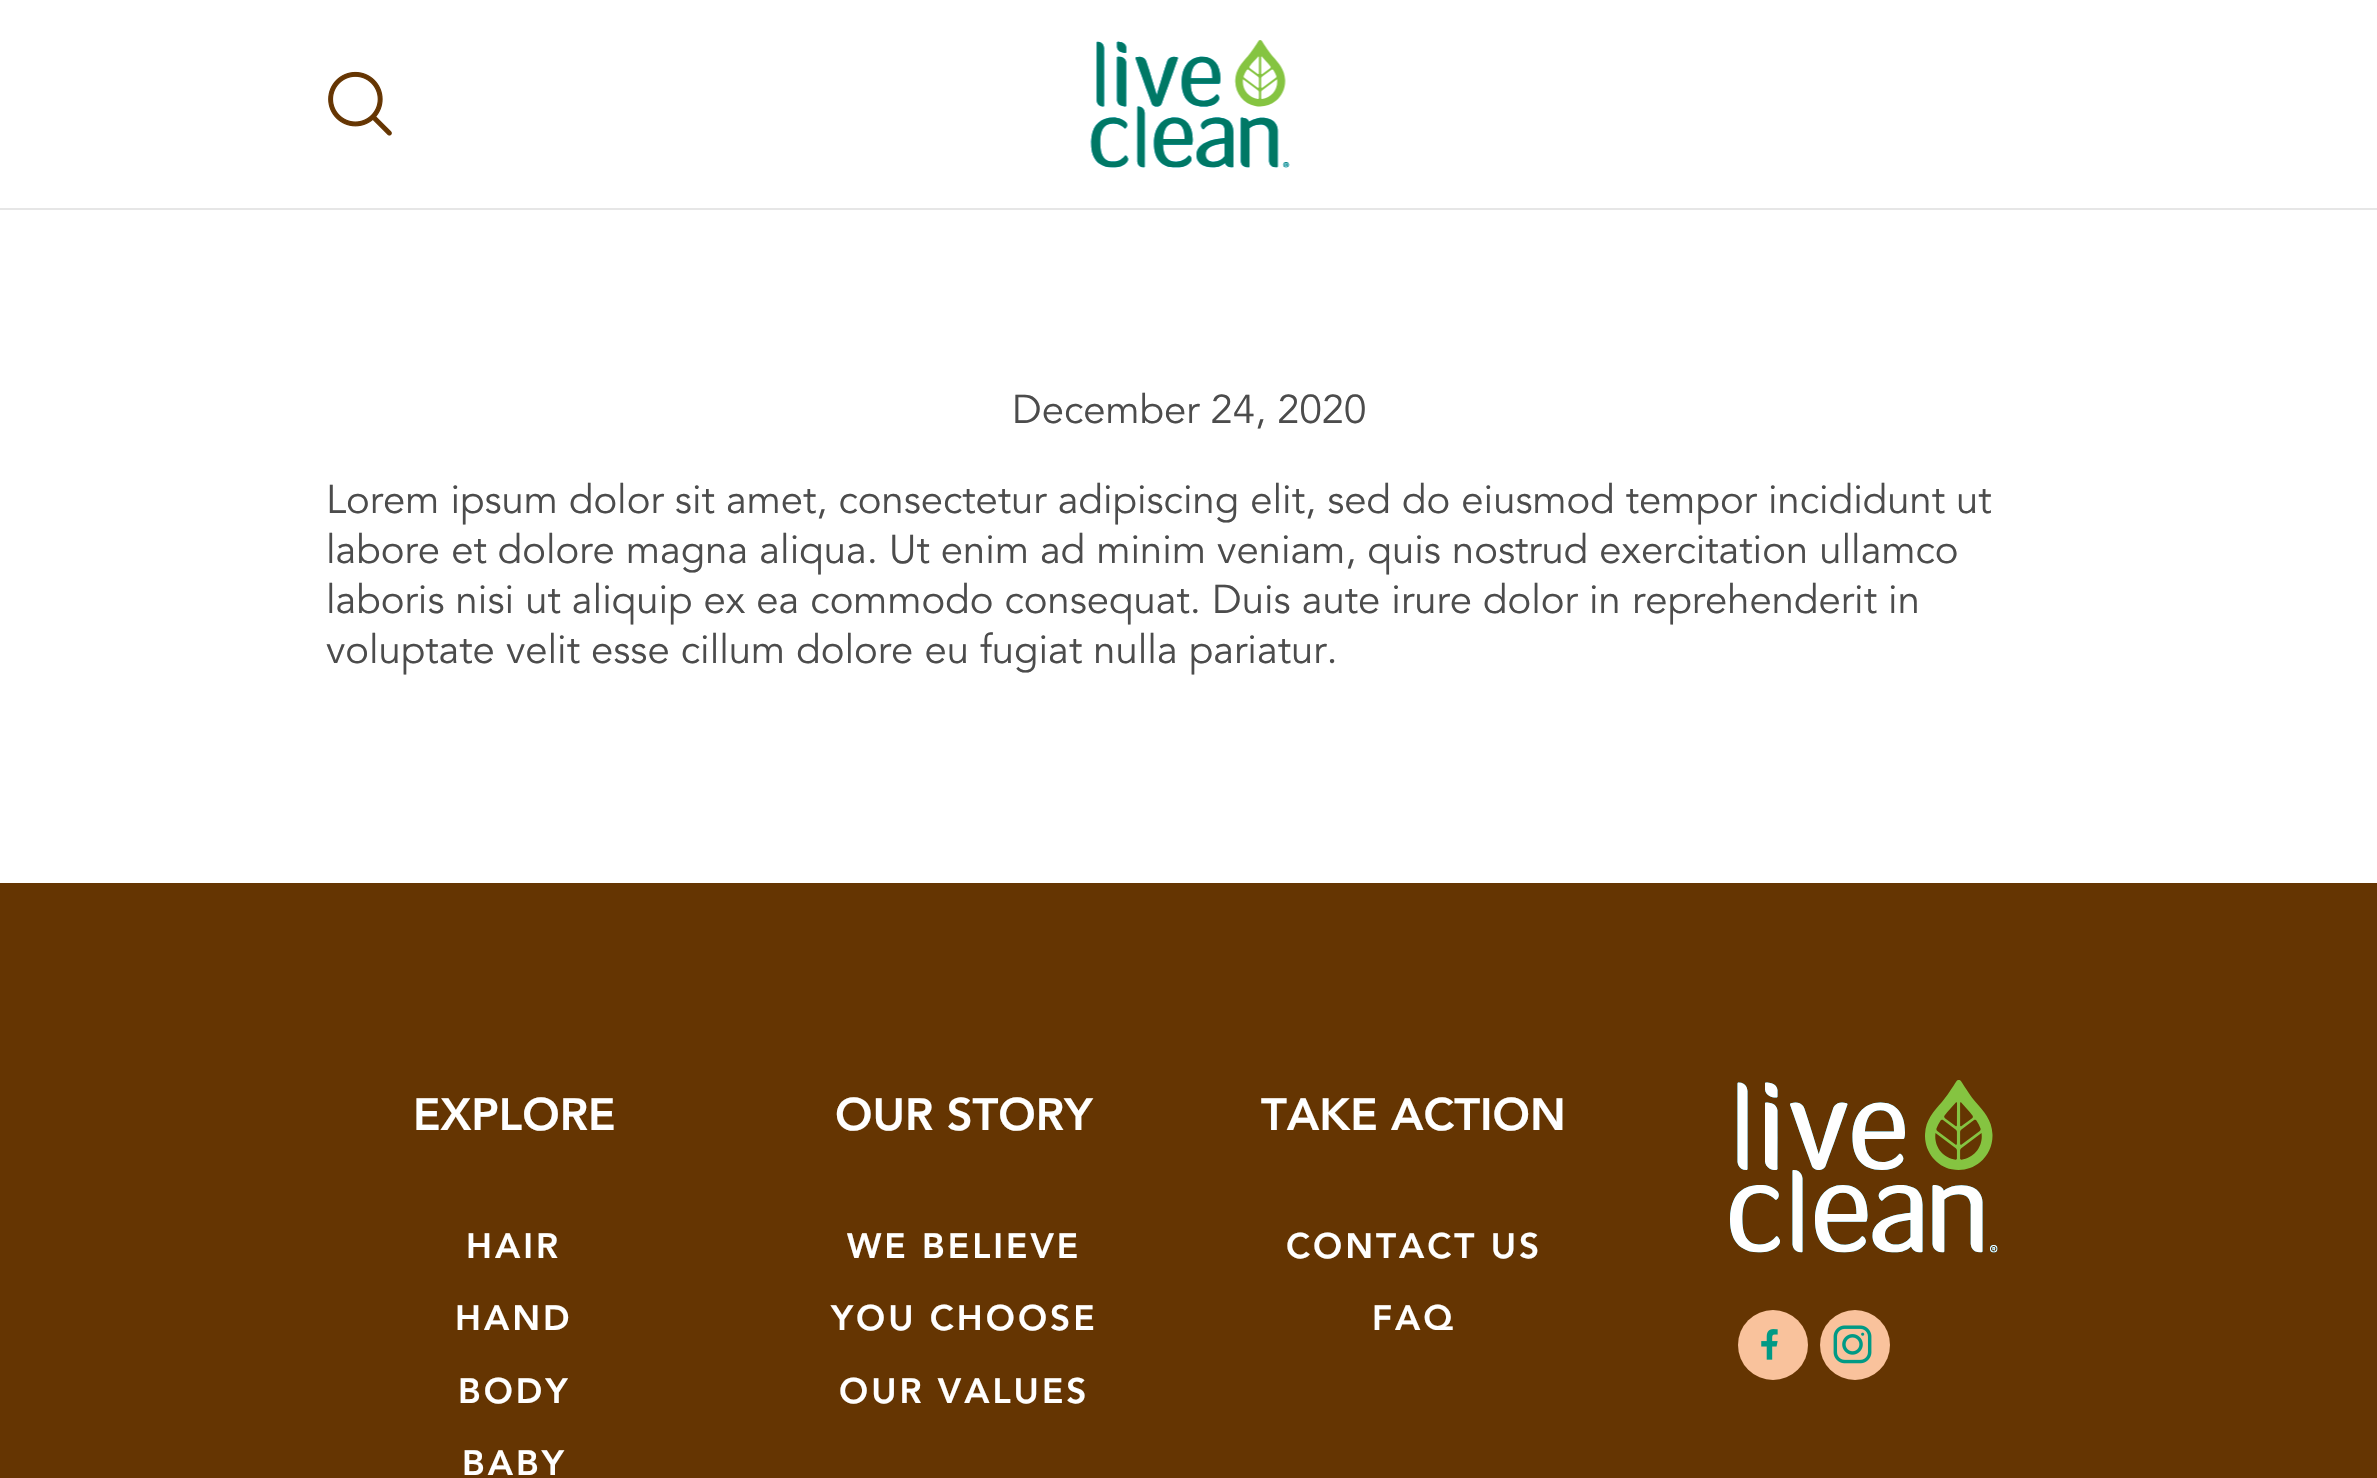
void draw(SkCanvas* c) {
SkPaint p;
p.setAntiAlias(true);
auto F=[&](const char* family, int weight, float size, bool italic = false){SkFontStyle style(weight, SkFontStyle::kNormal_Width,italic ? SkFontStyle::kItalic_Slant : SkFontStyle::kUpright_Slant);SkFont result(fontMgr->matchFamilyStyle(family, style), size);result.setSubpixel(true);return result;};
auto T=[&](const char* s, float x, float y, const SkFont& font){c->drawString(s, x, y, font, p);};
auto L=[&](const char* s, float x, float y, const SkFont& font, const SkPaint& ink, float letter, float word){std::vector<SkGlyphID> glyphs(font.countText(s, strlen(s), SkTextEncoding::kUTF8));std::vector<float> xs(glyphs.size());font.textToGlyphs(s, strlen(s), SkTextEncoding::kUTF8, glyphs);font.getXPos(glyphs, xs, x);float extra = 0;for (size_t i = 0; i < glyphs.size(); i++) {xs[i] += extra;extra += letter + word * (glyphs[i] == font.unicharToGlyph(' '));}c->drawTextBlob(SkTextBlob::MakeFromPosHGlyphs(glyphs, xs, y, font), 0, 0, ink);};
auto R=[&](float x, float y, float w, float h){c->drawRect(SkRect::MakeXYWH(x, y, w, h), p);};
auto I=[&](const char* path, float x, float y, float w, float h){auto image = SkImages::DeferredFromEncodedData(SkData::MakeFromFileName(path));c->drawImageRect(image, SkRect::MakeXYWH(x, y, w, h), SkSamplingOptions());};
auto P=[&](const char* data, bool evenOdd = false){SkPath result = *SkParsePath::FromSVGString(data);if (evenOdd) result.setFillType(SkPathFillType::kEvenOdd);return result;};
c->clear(0xffffffff);
p.setColor(0xffe6e6e6);
c->drawPath(P("M0 208v2h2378v-207v205z"),p);
I("1.png",328,71,64,65);
I("2.png",1090,40,200,128);
auto f1 = F("Avenir",400,40);
p.setColor(0xff4c4c4c);
T("December 24, 2020",1012,423,f1);
T("Lorem ipsum dolor sit amet, consectetur adipiscing elit, sed do eiusmod tempor incididunt ut",326,513,f1);
T("labore et dolore magna aliqua. Ut enim ad minim veniam, quis nostrud exercitation ullamco",326,563,f1);
T("laboris nisi ut aliquip ex ea commodo consequat. Duis aute irure dolor in reprehenderit in",326,613,f1);
T("voluptate velit esse cillum dolore eu fugiat nulla pariatur.",326,663,f1);
p.setColor(0xff653502);
R(0,883,2377,595);
auto f2 = F("Avenir",900,45);
p.setColor(0xffffffff);
T("EXPLORE",413,1130,f2);
auto f3 = F("Avenir",900,35);
L("HAIR",466,1258,f3,p,3,0);
L("HAND",455,1330,f3,p,3,0);
L("BODY",458,1403,f3,p,3,0);
L("BABY",462,1475,f3,p,3,0);
T("OUR STORY",835,1130,f2);
L("WE BELIEVE",847,1258,f3,p,3,0);
L("YOU CHOOSE",831,1330,f3,p,3,0);
L("OUR VALUES",839,1403,f3,p,3,0);
T("TAKE ACTION",1261,1130,f2);
L("CONTACT US",1286,1258,f3,p,3,0);
L("FAQ",1372,1330,f3,p,3,0);
I("3.png",1730,1080,268,173);
p.setColor(0xfff9c29c);
c->drawCircle(1773,1345,35,p);
I("4.png",1761,1329,17,31);
c->drawCircle(1855,1345,35,p);
I("5.png",1833,1325,39,39);
}
